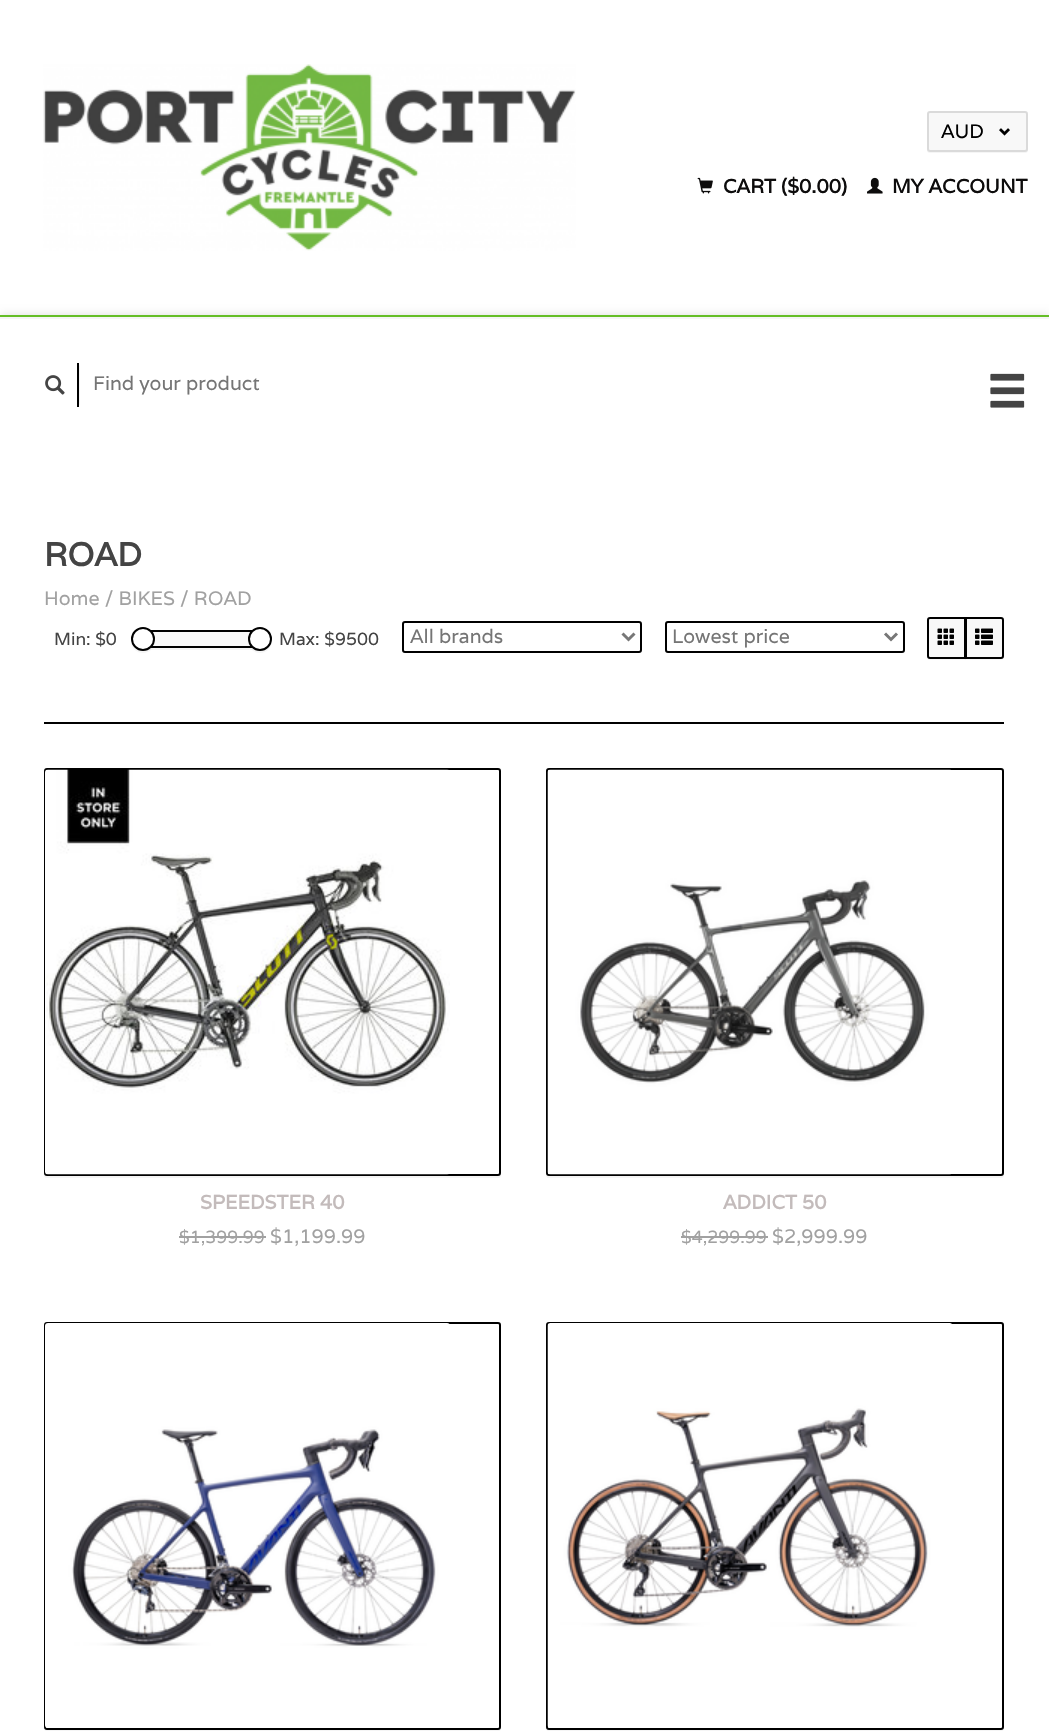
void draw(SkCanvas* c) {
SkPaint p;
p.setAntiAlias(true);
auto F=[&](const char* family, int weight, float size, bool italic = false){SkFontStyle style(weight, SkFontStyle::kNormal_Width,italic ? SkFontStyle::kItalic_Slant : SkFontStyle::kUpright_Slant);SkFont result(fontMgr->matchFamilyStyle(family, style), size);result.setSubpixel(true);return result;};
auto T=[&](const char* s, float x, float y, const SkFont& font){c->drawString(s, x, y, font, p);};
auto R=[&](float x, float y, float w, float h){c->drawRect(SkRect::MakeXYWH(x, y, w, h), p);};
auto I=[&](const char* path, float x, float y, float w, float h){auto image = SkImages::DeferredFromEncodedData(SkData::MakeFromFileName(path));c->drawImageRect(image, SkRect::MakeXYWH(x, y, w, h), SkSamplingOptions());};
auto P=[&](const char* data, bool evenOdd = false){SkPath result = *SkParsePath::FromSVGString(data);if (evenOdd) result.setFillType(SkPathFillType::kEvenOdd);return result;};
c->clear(0xffffffff);
I("1.png",43,64,533,187);
p.setColor(0xfff5f5f5);
c->drawPath(P("M927 148v2c0 2 1 3 3 3h95c2 0 3-1 3-3v-34v-2v34c0 2-2 4-4 4h-94c-2 0-3-2-3-4z"),p);
p.setColor(0xfff8f8f8);
c->drawRoundRect(SkRect::MakeXYWH(928,112,99,39),2,2,p);
p.setStroke(true);
p.setStrokeWidth(2);
p.setColor(0xffdadada);
c->drawRoundRect(SkRect::MakeXYWH(928,112,99,39),2,2,p);
auto f1 = F("Varela",400,19.5);
p.setStroke(false);
p.setColor(0xff000000);
T("AUD",941,138,f1);
I("2.png",999,128,11,8);
I("3.png",697,177,16,17);
auto f2 = F("Varela",700,19.5);
p.setColor(0xff0d0c0c);
T("CART ($0.00)",723,193,f2);
I("4.png",867,177,16,17);
T("MY ACCOUNT",892,193,f2);
p.setColor(0x21000000);
p.setMaskFilter(SkMaskFilter::MakeBlur(kNormal_SkBlurStyle, 5));
c->drawRoundRect(SkRect::MakeXYWH(0,315,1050,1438),3,3,p);
p.setMaskFilter(nullptr);
p.setColor(0xffffffff);
R(0,319,1049,1416);
p.setColor(0xfff5f5f5);
R(0,317,1049,2);
p.setColor(0xff65be27);
R(0,315,1049,2);
c->save();
c->clipRect(SkRect::MakeXYWH(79,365,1,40));
p.setColor(0x0f000000);
p.setMaskFilter(SkMaskFilter::MakeBlur(kNormal_SkBlurStyle, 1));
c->drawRect(SkRect::MakeXYWH(38,365,42,40),p);
p.setMaskFilter(nullptr);
c->restore();
p.setColor(0xff000000);
R(77,363,2,44);
I("5.png",45,375,20,20);
p.setColor(0xff757575);
T("Find your product",93,390,f1);
I("6.png",990,373,35,35);
auto f3 = F("Varela",700,33);
p.setColor(0xff444444);
T("ROAD",44,566,f3);
p.setColor(0xffa1a1a1);
T("Home / BIKES / ROAD",44,605,f1);
auto f4 = F("Varela",400,17.5);
p.setColor(0xff444444);
T("Min: $0",54,645,f4);
p.setColor(0xfff5f5f5);
R(144,648,117,2);
p.setColor(0xfff8f8f8);
R(152,632,99,14);
p.setStroke(true);
p.setColor(0xff000000);
c->drawRect(SkRect::MakeXYWH(145,631,115,16),p);
p.setStroke(false);
p.setColor(0x0a000000);
c->drawPath(P("M131 643c.5 2.5 2 5.5 4 7c9.5 8 23-1.5 19.5-13c2 14.5-18.5 19.5-23.5 6z"),p);
p.setColor(0xffffffff);
c->drawCircle(143,639,11,p);
p.setStroke(true);
p.setColor(0xff000000);
c->drawCircle(143,639,11,p);
p.setStroke(false);
p.setColor(0x0a000000);
c->drawPath(P("M248 643c.5 2.5 2 5.5 4 7c9.5 8 23-1.5 19.5-13c2 14.5-18.5 19.5-23.5 6z"),p);
p.setColor(0xffffffff);
c->drawCircle(260,639,11,p);
p.setStroke(true);
p.setColor(0xff000000);
c->drawCircle(260,639,11,p);
p.setStroke(false);
p.setColor(0xff444444);
T("Max: $9500",279,645,f4);
p.setStroke(true);
p.setColor(0xff000000);
c->drawRoundRect(SkRect::MakeXYWH(403,622,238,30),2,2,p);
p.setStrokeWidth(3);
p.setColor(0xff777777);
c->drawPath(P("M622.5 633.5l6 6l6-6"),p);
p.setStroke(false);
p.setColor(0xff757575);
T("All brands",410,643,f1);
p.setStroke(true);
p.setStrokeWidth(2);
p.setColor(0xff000000);
c->drawRoundRect(SkRect::MakeXYWH(666,622,238,30),2,2,p);
p.setStrokeWidth(3);
p.setColor(0xff777777);
c->drawPath(P("M885 633.5l6 6l6-6"),p);
p.setStroke(false);
p.setColor(0xff757575);
T("Lowest price",672,643,f1);
p.setColor(0xfff5f5f5);
c->drawPath(P("M927 655.5v1.5c0 1.5 1.5 3 3 3h36v-1.5h-36c-1.5 0-3-1.5-3-3z"),p);
p.setColor(0xfff8f8f8);
c->drawPath(P("M930 618h35v40h-35c-1 0-2-1-2-2v-36c0-1 1-2 2-2z"),p);
p.setStroke(true);
p.setStrokeWidth(2);
p.setColor(0xff000000);
c->drawPath(P("M930 618h35v40h-35c-1 0-2-1-2-2v-36c0-1 1-2 2-2z"),p);
I("7.png",937,628,17,17);
p.setStroke(false);
p.setColor(0x0a000000);
c->drawPath(P("M965 658v2h30c12 0 9-1 9-15c0-4 1-23-1-26l1 31c0 12-2 8-15 8z"),p);
p.setColor(0xfff8f8f8);
c->drawPath(P("M966 618h35c1 0 2 1 2 2v36c0 1-1 2-2 2h-35z"),p);
p.setStroke(true);
p.setColor(0xff000000);
c->drawPath(P("M966 618h35c1 0 2 1 2 2v36c0 1-1 2-2 2h-35z"),p);
I("8.png",975,628,18,17);
p.setStroke(false);
R(44,722,960,2);
p.setColor(0xfff5f5f5);
c->drawPath(P("M44 1175c0 2 1 3 3 3h451c2 0 3-1 3-3v-2c0 1-1 2-2 3h-454z"),p);
p.setStroke(true);
p.setColor(0xff000000);
c->drawRoundRect(SkRect::MakeXYWH(45,769,455,406),2,2,p);
I("9.png",45,769,405,406);
p.setStroke(false);
p.setColor(0xffc3bbbb);
T("SPEEDSTER 40",200,1209,f2);
p.setColor(0xffa1a1a1);
T("$1,399.99",179,1243,f4);
R(179,1236,87,2);
T("$1,199.99",270,1243,f1);
p.setColor(0xfff5f5f5);
c->drawPath(P("M546 1173v2c0 2 1 3 3 3h452c2 0 3-1 3-3v-402v-2v402c0 2-2 3-4 3h-451c-2 0-3-1-3-3z"),p);
p.setStroke(true);
p.setColor(0xff000000);
c->drawRoundRect(SkRect::MakeXYWH(547,769,456,406),2,2,p);
I("10.png",547,769,404,406);
p.setStroke(false);
p.setColor(0xffc3bbbb);
T("ADDICT 50",723,1209,f2);
p.setColor(0xffa1a1a1);
T("$4,299.99",681,1243,f4);
R(681,1236,87,2);
T("$2,999.99",772,1243,f1);
p.setColor(0xfff5f5f5);
c->drawPath(P("M44 1728c0 2 1 3 3 3h451c3 0 3-2 3-5c0 2-1 4-3 4h-452c-1 0-1-1-2-2z"),p);
p.setStroke(true);
p.setColor(0xff000000);
c->drawRoundRect(SkRect::MakeXYWH(45,1323,455,406),2,2,p);
I("11.png",45,1323,405,405);
p.setStroke(false);
p.setColor(0xfff5f5f5);
c->drawPath(P("M546 1726v2c0 2 1 3 3 3h452c2 0 3-1 3-3v-402l-1-2l1 402c0 2-2 4-4 4h-451c-2 0-3-2-3-4z"),p);
p.setStroke(true);
p.setColor(0xff000000);
c->drawRoundRect(SkRect::MakeXYWH(547,1323,456,406),2,2,p);
I("12.png",547,1323,405,405);
}
